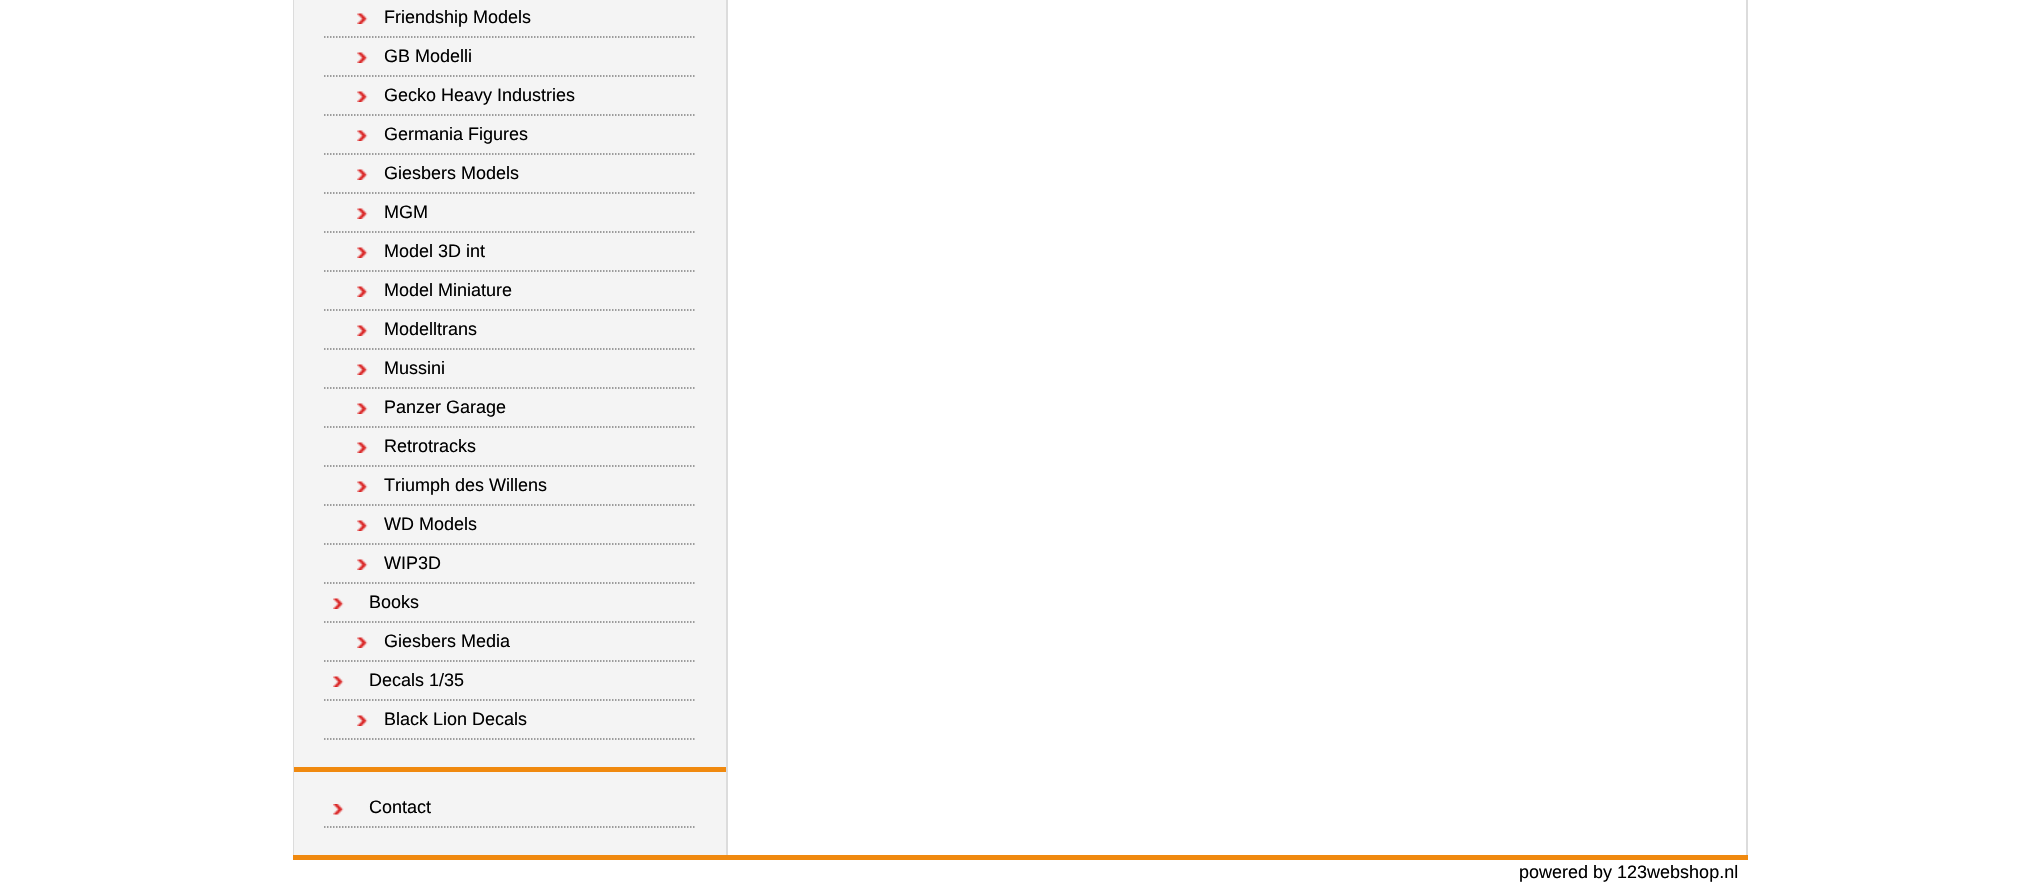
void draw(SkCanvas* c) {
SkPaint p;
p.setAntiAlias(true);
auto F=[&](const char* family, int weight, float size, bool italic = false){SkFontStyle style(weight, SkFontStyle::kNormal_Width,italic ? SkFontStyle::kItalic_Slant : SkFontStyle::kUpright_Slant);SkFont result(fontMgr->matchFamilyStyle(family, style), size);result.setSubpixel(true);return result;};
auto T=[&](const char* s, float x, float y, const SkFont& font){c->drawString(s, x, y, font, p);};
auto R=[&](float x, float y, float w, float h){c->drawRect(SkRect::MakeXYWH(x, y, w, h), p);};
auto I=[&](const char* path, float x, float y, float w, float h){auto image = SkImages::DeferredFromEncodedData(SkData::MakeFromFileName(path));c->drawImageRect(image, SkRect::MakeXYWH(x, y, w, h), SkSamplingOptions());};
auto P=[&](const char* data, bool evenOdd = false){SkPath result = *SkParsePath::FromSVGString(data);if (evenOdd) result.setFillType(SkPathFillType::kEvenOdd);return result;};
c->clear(0xffffffff);
p.setColor(0xffdcdcdc);
R(1746,0,2,855);
R(293,0,1,855);
p.setColor(0xfff4f4f4);
R(294,0,432,855);
p.setColor(0xffdcdcdc);
R(726,0,2,855);
I("1.png",357,13,11,11);
p.setStroke(true);
p.setStrokeWidth(1.5);
p.setColor(0xff7f7f7f);
p.setPathEffect(SkDashPathEffect::Make({{1.5f,1.5f}}, 0));
c->drawPath(P("M324 37h372"),p);
p.setPathEffect(nullptr);
auto f1 = F("Liberation Sans",400,18);
p.setStroke(false);
p.setColor(0xff000000);
T("Friendship Models",384,23,f1);
I("1.png",357,52,11,11);
p.setStroke(true);
p.setColor(0xff7f7f7f);
p.setPathEffect(SkDashPathEffect::Make({{1.5f,1.5f}}, 0));
c->drawPath(P("M324 76h372"),p);
p.setPathEffect(nullptr);
p.setStroke(false);
p.setColor(0xff000000);
T("GB Modelli",384,62,f1);
I("1.png",357,91,11,11);
p.setStroke(true);
p.setColor(0xff7f7f7f);
p.setPathEffect(SkDashPathEffect::Make({{1.5f,1.5f}}, 0));
c->drawPath(P("M324 115h372"),p);
p.setPathEffect(nullptr);
p.setStroke(false);
p.setColor(0xff000000);
T("Gecko Heavy Industries",384,101,f1);
I("1.png",357,130,11,11);
p.setStroke(true);
p.setColor(0xff7f7f7f);
p.setPathEffect(SkDashPathEffect::Make({{1.5f,1.5f}}, 0));
c->drawPath(P("M324 154h372"),p);
p.setPathEffect(nullptr);
p.setStroke(false);
p.setColor(0xff000000);
T("Germania Figures",384,140,f1);
I("1.png",357,169,11,11);
p.setStroke(true);
p.setColor(0xff7f7f7f);
p.setPathEffect(SkDashPathEffect::Make({{1.5f,1.5f}}, 0));
c->drawPath(P("M324 193h372"),p);
p.setPathEffect(nullptr);
p.setStroke(false);
p.setColor(0xff000000);
T("Giesbers Models",384,179,f1);
I("1.png",357,208,11,11);
p.setStroke(true);
p.setColor(0xff7f7f7f);
p.setPathEffect(SkDashPathEffect::Make({{1.5f,1.5f}}, 0));
c->drawPath(P("M324 232h372"),p);
p.setPathEffect(nullptr);
p.setStroke(false);
p.setColor(0xff000000);
T("MGM",384,218,f1);
I("1.png",357,247,11,11);
p.setStroke(true);
p.setColor(0xff7f7f7f);
p.setPathEffect(SkDashPathEffect::Make({{1.5f,1.5f}}, 0));
c->drawPath(P("M324 271h372"),p);
p.setPathEffect(nullptr);
p.setStroke(false);
p.setColor(0xff000000);
T("Model 3D int",384,257,f1);
I("1.png",357,286,11,11);
p.setStroke(true);
p.setColor(0xff7f7f7f);
p.setPathEffect(SkDashPathEffect::Make({{1.5f,1.5f}}, 0));
c->drawPath(P("M324 310h372"),p);
p.setPathEffect(nullptr);
p.setStroke(false);
p.setColor(0xff000000);
T("Model Miniature",384,296,f1);
I("1.png",357,325,11,11);
p.setStroke(true);
p.setColor(0xff7f7f7f);
p.setPathEffect(SkDashPathEffect::Make({{1.5f,1.5f}}, 0));
c->drawPath(P("M324 349h372"),p);
p.setPathEffect(nullptr);
p.setStroke(false);
p.setColor(0xff000000);
T("Modelltrans",384,335,f1);
I("1.png",357,364,11,11);
p.setStroke(true);
p.setColor(0xff7f7f7f);
p.setPathEffect(SkDashPathEffect::Make({{1.5f,1.5f}}, 0));
c->drawPath(P("M324 388h372"),p);
p.setPathEffect(nullptr);
p.setStroke(false);
p.setColor(0xff000000);
T("Mussini",384,374,f1);
I("1.png",357,403,11,11);
p.setStroke(true);
p.setColor(0xff7f7f7f);
p.setPathEffect(SkDashPathEffect::Make({{1.5f,1.5f}}, 0));
c->drawPath(P("M324 427h372"),p);
p.setPathEffect(nullptr);
p.setStroke(false);
p.setColor(0xff000000);
T("Panzer Garage",384,413,f1);
I("1.png",357,442,11,11);
p.setStroke(true);
p.setColor(0xff7f7f7f);
p.setPathEffect(SkDashPathEffect::Make({{1.5f,1.5f}}, 0));
c->drawPath(P("M324 466h372"),p);
p.setPathEffect(nullptr);
p.setStroke(false);
p.setColor(0xff000000);
T("Retrotracks",384,452,f1);
I("1.png",357,481,11,11);
p.setStroke(true);
p.setColor(0xff7f7f7f);
p.setPathEffect(SkDashPathEffect::Make({{1.5f,1.5f}}, 0));
c->drawPath(P("M324 505h372"),p);
p.setPathEffect(nullptr);
p.setStroke(false);
p.setColor(0xff000000);
T("Triumph des Willens",384,491,f1);
I("1.png",357,520,11,11);
p.setStroke(true);
p.setColor(0xff7f7f7f);
p.setPathEffect(SkDashPathEffect::Make({{1.5f,1.5f}}, 0));
c->drawPath(P("M324 544h372"),p);
p.setPathEffect(nullptr);
p.setStroke(false);
p.setColor(0xff000000);
T("WD Models",384,530,f1);
I("1.png",357,559,11,11);
p.setStroke(true);
p.setColor(0xff7f7f7f);
p.setPathEffect(SkDashPathEffect::Make({{1.5f,1.5f}}, 0));
c->drawPath(P("M324 583h372"),p);
p.setPathEffect(nullptr);
p.setStroke(false);
p.setColor(0xff000000);
T("WIP3D",384,569,f1);
I("1.png",333,598,11,11);
p.setStroke(true);
p.setColor(0xff7f7f7f);
p.setPathEffect(SkDashPathEffect::Make({{1.5f,1.5f}}, 0));
c->drawPath(P("M324 622h372"),p);
p.setPathEffect(nullptr);
p.setStroke(false);
p.setColor(0xff000000);
T("Books",369,608,f1);
I("1.png",357,637,11,11);
p.setStroke(true);
p.setColor(0xff7f7f7f);
p.setPathEffect(SkDashPathEffect::Make({{1.5f,1.5f}}, 0));
c->drawPath(P("M324 661h372"),p);
p.setPathEffect(nullptr);
p.setStroke(false);
p.setColor(0xff000000);
T("Giesbers Media",384,647,f1);
I("1.png",333,676,11,11);
p.setStroke(true);
p.setColor(0xff7f7f7f);
p.setPathEffect(SkDashPathEffect::Make({{1.5f,1.5f}}, 0));
c->drawPath(P("M324 700h372"),p);
p.setPathEffect(nullptr);
p.setStroke(false);
p.setColor(0xff000000);
T("Decals 1/35",369,686,f1);
I("1.png",357,715,11,11);
p.setStroke(true);
p.setColor(0xff7f7f7f);
p.setPathEffect(SkDashPathEffect::Make({{1.5f,1.5f}}, 0));
c->drawPath(P("M324 739h372"),p);
p.setPathEffect(nullptr);
p.setStroke(false);
p.setColor(0xff000000);
T("Black Lion Decals",384,725,f1);
p.setColor(0xfff0890f);
R(294,767,432,5);
I("2.png",333,804,11,11);
p.setStroke(true);
p.setColor(0xff7f7f7f);
p.setPathEffect(SkDashPathEffect::Make({{1.5f,1.5f}}, 0));
c->drawPath(P("M324 827h372"),p);
p.setPathEffect(nullptr);
p.setStroke(false);
p.setColor(0xff000000);
T("Contact",369,813,f1);
p.setColor(0xfff0890f);
R(293,855,1455,5);
p.setColor(0xff000000);
T("powered by 123webshop.nl",1519,878,f1);
}
